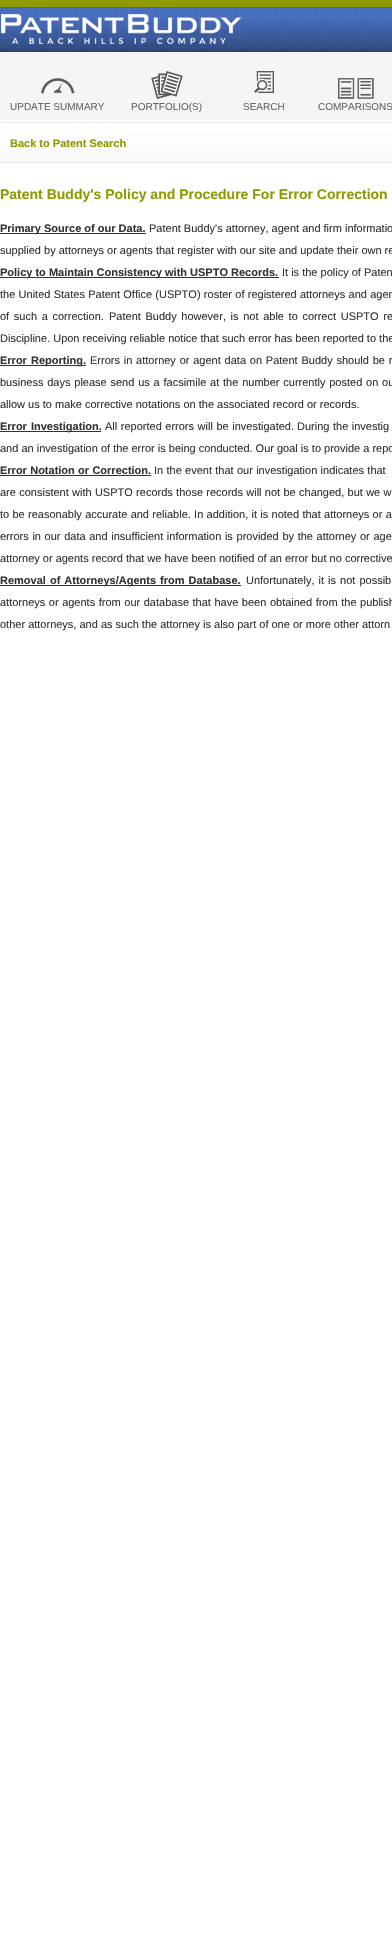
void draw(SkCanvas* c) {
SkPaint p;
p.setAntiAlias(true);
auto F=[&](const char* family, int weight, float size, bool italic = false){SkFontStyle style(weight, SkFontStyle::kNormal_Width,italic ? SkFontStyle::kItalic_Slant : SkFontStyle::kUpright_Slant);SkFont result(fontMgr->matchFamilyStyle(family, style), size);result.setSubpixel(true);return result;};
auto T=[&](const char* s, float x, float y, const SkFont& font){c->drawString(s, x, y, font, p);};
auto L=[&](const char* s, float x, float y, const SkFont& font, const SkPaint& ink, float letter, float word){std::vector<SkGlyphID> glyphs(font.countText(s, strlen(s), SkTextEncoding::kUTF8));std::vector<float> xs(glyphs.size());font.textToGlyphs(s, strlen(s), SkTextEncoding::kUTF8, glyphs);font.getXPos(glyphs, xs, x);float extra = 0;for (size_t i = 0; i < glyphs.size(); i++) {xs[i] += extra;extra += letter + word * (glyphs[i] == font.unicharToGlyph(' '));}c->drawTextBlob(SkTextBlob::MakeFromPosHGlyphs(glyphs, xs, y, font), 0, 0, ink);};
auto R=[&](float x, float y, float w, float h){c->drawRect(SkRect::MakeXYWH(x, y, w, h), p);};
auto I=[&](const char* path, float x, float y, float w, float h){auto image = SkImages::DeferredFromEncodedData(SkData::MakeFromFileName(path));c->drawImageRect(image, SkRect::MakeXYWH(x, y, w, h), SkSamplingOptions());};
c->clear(0xffffffff);
I("1.png",0,0,392,163);
I("2.png",1,14,240,30);
I("3.png",41,78,34,16);
auto f1 = F("Liberation Sans",400,10);
p.setColor(0xff666666);
T("UPDATE SUMMARY",10,110,f1);
I("4.png",151,71,32,28);
T("PORTFOLIO(S)",131,110,f1);
I("5.png",254,71,20,22);
T("SEARCH",243,110,f1);
I("6.png",338,78,36,21);
T("COMPARISONS",318,110,f1);
auto f2 = F("Liberation Sans",700,11);
p.setColor(0xff8f9900);
T("Back to Patent Search",10,147,f2);
auto f3 = F("Liberation Sans",700,14);
T("Patent Buddy's Policy and Procedure For Error Correction",0,199,f3);
p.setColor(0xff333333);
R(0,233,146,1);
T("Primary Source of our Data.",0,232,f2);
auto f4 = F("Liberation Sans",400,11);
T("Patent Buddy's attorney, agent and firm informatio",149,232,f4);
T("supplied by attorneys or agents that register with our site and update their own re",0,254,f4);
R(0,277,279,1);
T("Policy to Maintain Consistency with USPTO Records.",0,276,f2);
T("It is the policy of Paten",282,276,f4);
L("the United States Patent Office (USPTO) roster of registered attorneys and agen",0,298,f4,p,0,.25);
L("of such a correction.",0,320,f4,p,0,1.6);
L("Patent Buddy however, is not able to correct USPTO re",109,320,f4,p,0,1.6);
T("Discipline. Upon receiving reliable notice that such error has been reported to the",0,342,f4);
R(0,365,86,1);
L("Error Reporting.",0,364,f2,p,0,1);
L("Errors in attorney or agent data on Patent Buddy should be r",90,364,f4,p,0,.75);
L("business days please send us a facsimile at the number currently posted on ou",0,386,f4,p,0,.75);
T("allow us to make corrective notations on the associated record or records.",0,408,f4);
R(0,431,101,1);
L("Error Investigation.",0,430,f2,p,0,1);
L("All reported errors will be investigated.",105,430,f4,p,0,.5);
L("During the investig",297,430,f4,p,0,.5);
T("and an investigation of the error is being conducted. Our goal is to provide a repo",0,452,f4);
L("Error Notation or Correction.",0,474,f2,p,0,.25);
R(0,475,151,1);
L("In the event that our investigation indicates that",154,474,f4,p,0,.25);
L("are consistent with USPTO records those records will not be changed, but we wi",0,496,f4,p,0,.25);
L("to be reasonably accurate and reliable. In addition, it is noted that attorneys or a",0,518,f4,p,0,.25);
L("errors in our data and insufficient information is provided by the attorney or age",0,540,f4,p,0,.6);
T("attorney or agents record that we have been notified of an error but no corrective",0,562,f4);
R(0,585,241,1);
L("Removal of Attorneys/Agents from Database.",0,584,f2,p,0,1);
L("Unfortunately, it is not possib",246,584,f4,p,0,1);
L("attorneys or agents from our database that have been obtained from the publish",0,606,f4,p,0,.5);
T("other attorneys, and as such the attorney is also part of one or more other attorn",0,628,f4);
}
